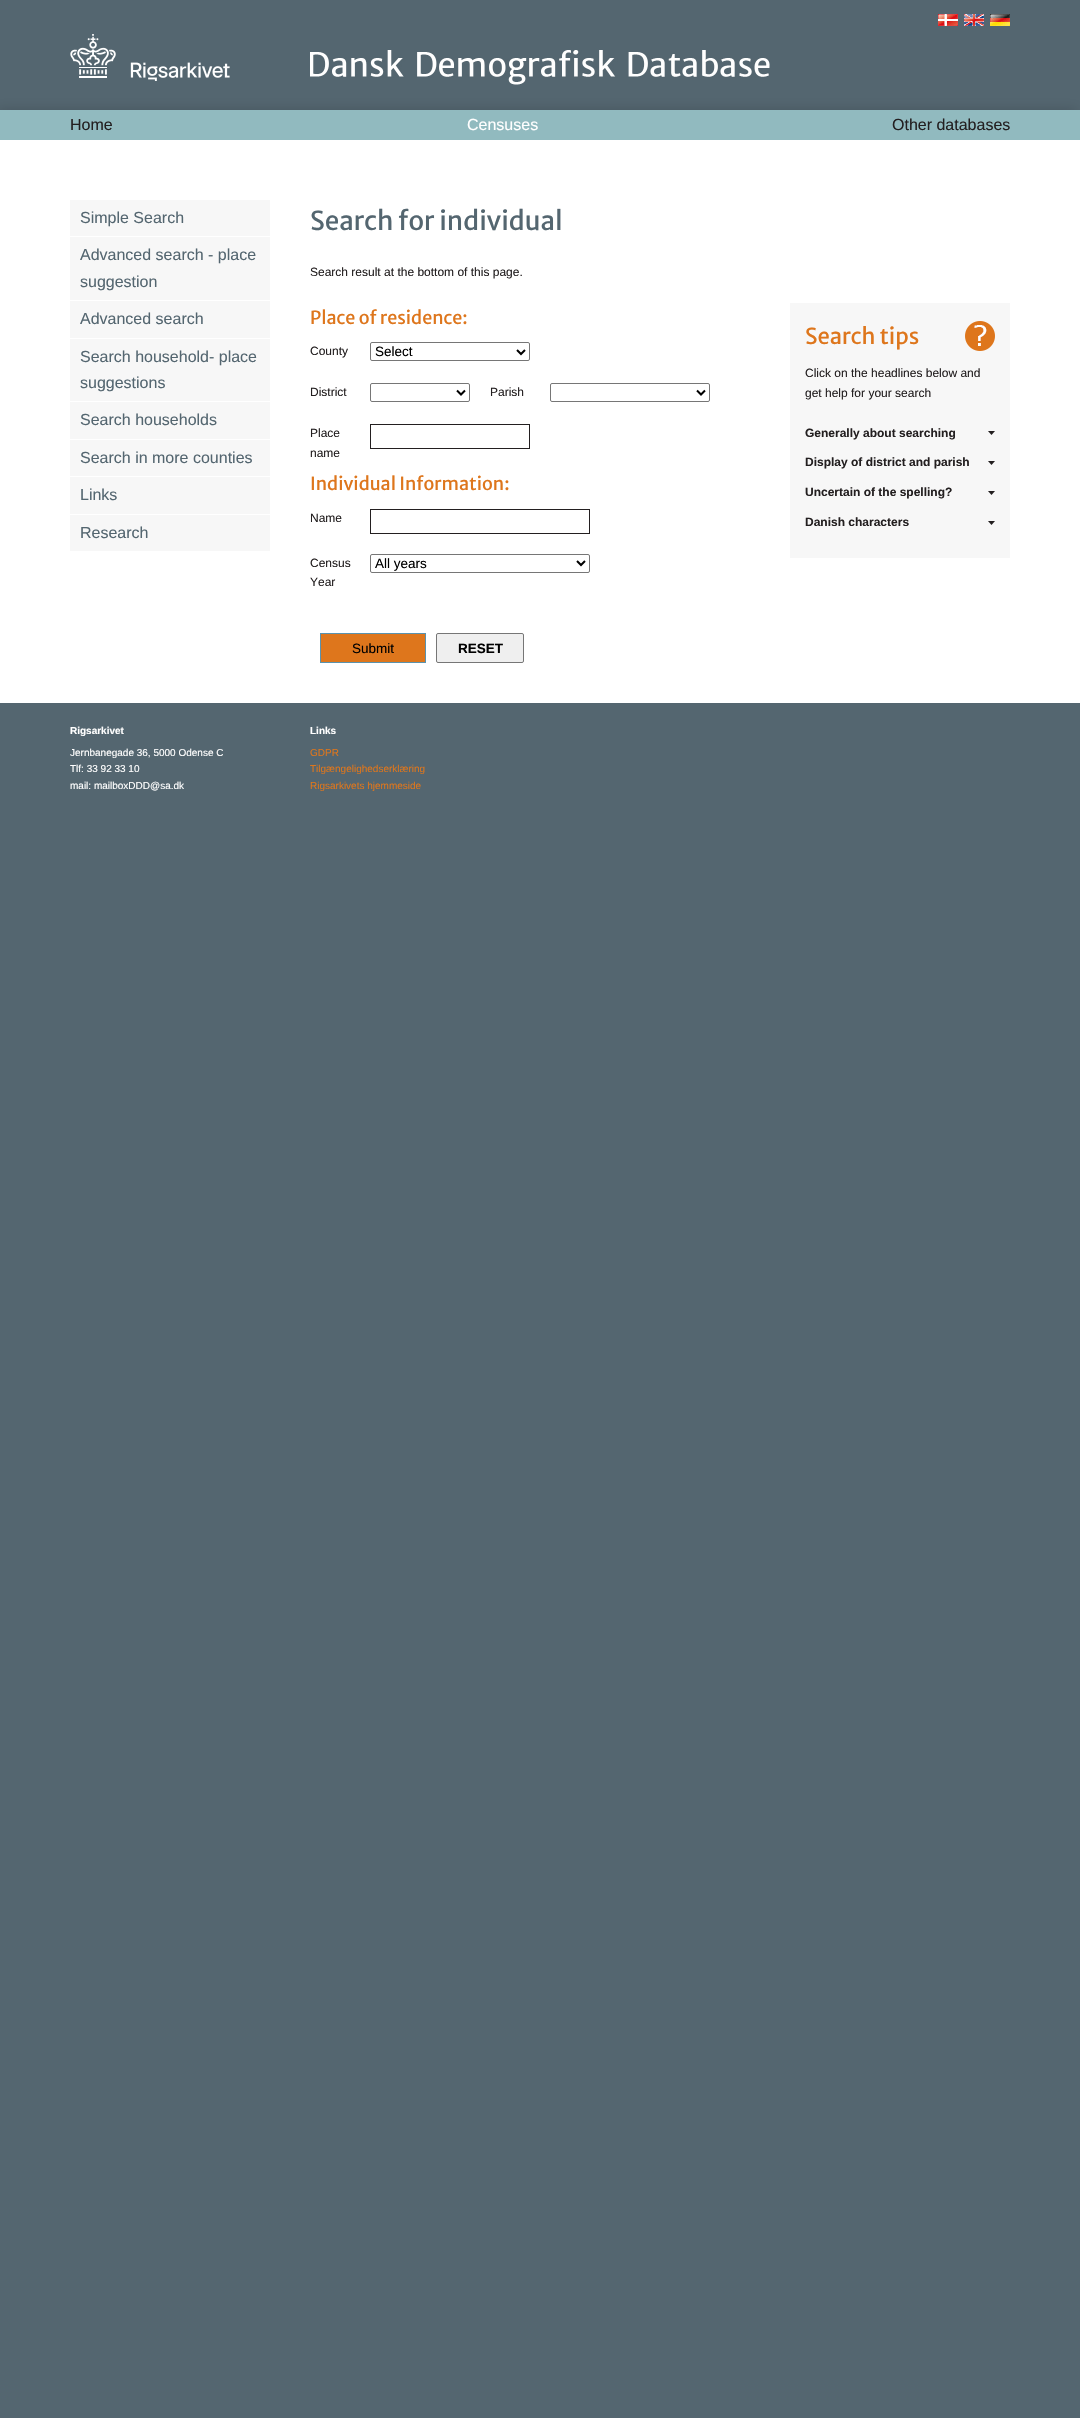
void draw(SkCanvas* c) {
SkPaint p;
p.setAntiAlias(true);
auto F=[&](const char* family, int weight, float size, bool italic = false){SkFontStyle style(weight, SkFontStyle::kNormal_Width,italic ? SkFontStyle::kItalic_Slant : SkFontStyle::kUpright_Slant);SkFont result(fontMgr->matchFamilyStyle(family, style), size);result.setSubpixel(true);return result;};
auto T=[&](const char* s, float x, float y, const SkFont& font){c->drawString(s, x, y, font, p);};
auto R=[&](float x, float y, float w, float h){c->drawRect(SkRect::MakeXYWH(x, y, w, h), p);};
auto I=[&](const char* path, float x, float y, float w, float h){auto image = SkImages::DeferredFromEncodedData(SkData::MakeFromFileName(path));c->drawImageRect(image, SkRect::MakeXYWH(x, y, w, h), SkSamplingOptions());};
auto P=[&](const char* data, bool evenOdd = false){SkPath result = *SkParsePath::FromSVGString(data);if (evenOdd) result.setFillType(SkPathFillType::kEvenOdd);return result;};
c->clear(0xff546670);
I("1.png",938,14,20,12);
I("2.png",964,14,20,12);
I("3.png",990,14,20,12);
I("4.png",70,34,160,47);
I("5.png",310,50,460,35);
p.setColor(0x29000000);
p.setMaskFilter(SkMaskFilter::MakeBlur(kNormal_SkBlurStyle, 6.5));
c->drawRect(SkRect::MakeXYWH(-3,110,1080,30),p);
p.setMaskFilter(nullptr);
p.setColor(0xff91babf);
R(0,110,1080,30);
auto f1 = F("Liberation Sans",400,16);
p.setColor(0xff231f20);
T("Home",70,130,f1);
p.setColor(0xffffffff);
T("Censuses",467,130,f1);
p.setColor(0xff231f20);
T("Other databases",892,130,f1);
p.setColor(0xffffffff);
R(0,140,1080,563);
p.setColor(0xfff7f7f7);
R(70,200,200,36);
p.setColor(0xff546670);
T("Simple Search",80,223,f1);
p.setColor(0xfff7f7f7);
R(70,237,200,63);
p.setColor(0xff546670);
T("Advanced search - place",80,260,f1);
T("suggestion",80,287,f1);
p.setColor(0xfff7f7f7);
R(70,301,200,37);
p.setColor(0xff546670);
T("Advanced search",80,324,f1);
p.setColor(0xfff7f7f7);
R(70,339,200,62);
p.setColor(0xff546670);
T("Search household- place",80,362,f1);
T("suggestions",80,388,f1);
p.setColor(0xfff7f7f7);
R(70,402,200,37);
p.setColor(0xff546670);
T("Search households",80,425,f1);
p.setColor(0xfff7f7f7);
R(70,440,200,36);
p.setColor(0xff546670);
T("Search in more counties",80,463,f1);
p.setColor(0xfff7f7f7);
R(70,477,200,37);
p.setColor(0xff546670);
T("Links",80,500,f1);
p.setColor(0xfff7f7f7);
R(70,515,200,36);
p.setColor(0xff546670);
T("Research",80,538,f1);
auto f2 = F("Merriweather Sans",400,26);
T("Search for individual",310,230,f2);
auto f3 = F("Liberation Sans",400,12);
p.setColor(0xff231f20);
T("Search result at the bottom of this page.",310,276,f3);
auto f4 = F("Merriweather Sans",400,18);
p.setColor(0xffde761c);
T("Place of residence:",310,324,f4);
p.setColor(0xff231f20);
T("County",310,355,f3);
p.setStroke(true);
p.setStrokeWidth(1);
p.setColor(0xff767676);
c->drawRoundRect(SkRect::MakeXYWH(370.5,342.5,159,18),1.5,1.5,p);
p.setStrokeWidth(2);
p.setColor(0xff000000);
c->drawPath(P("M517 350l4 4l4-4"),p);
auto f5 = F("Liberation Sans",400,13.5);
p.setStroke(false);
T("Select",375,356,f5);
p.setColor(0xff231f20);
T("District",310,396,f3);
p.setStroke(true);
p.setStrokeWidth(1);
p.setColor(0xff767676);
c->drawRoundRect(SkRect::MakeXYWH(370.5,383.5,99,18),1.5,1.5,p);
p.setStrokeWidth(2);
p.setColor(0xff000000);
c->drawPath(P("M457 390.5l4 4l4-4"),p);
p.setStroke(false);
p.setColor(0xff231f20);
T("Parish",490,396,f3);
p.setStroke(true);
p.setStrokeWidth(1);
p.setColor(0xff767676);
c->drawRoundRect(SkRect::MakeXYWH(550.5,383.5,159,18),1.5,1.5,p);
p.setStrokeWidth(2);
p.setColor(0xff000000);
c->drawPath(P("M697 390.5l4 4l4-4"),p);
p.setStroke(false);
p.setColor(0xff231f20);
T("Place",310,437,f3);
T("name",310,457,f3);
p.setStroke(true);
p.setStrokeWidth(1);
c->drawRect(SkRect::MakeXYWH(370.5,424.5,159,24),p);
p.setStroke(false);
p.setColor(0xffde761c);
T("Individual Information:",310,490,f4);
p.setColor(0xff231f20);
T("Name",310,522,f3);
p.setStroke(true);
c->drawRect(SkRect::MakeXYWH(370.5,509.5,219,24),p);
p.setStroke(false);
T("Census",310,567,f3);
T("Year",310,586,f3);
p.setStroke(true);
p.setColor(0xff767676);
c->drawRoundRect(SkRect::MakeXYWH(370.5,554.5,219,18),1.5,1.5,p);
p.setStrokeWidth(2);
p.setColor(0xff000000);
c->drawPath(P("M577 561l4 4l4-4"),p);
p.setStroke(false);
T("All years",375,568,f5);
p.setColor(0xffde761c);
c->drawRect(SkRect::MakeXYWH(320.5,633.5,105,29),p);
p.setStroke(true);
p.setStrokeWidth(1);
p.setColor(0xff5a92ad);
c->drawRect(SkRect::MakeXYWH(320.5,633.5,105,29),p);
p.setStroke(false);
p.setColor(0xff000000);
T("Submit",352,653,f5);
p.setColor(0xffefefef);
c->drawRoundRect(SkRect::MakeXYWH(436.5,633.5,87,29),1.5,1.5,p);
p.setStroke(true);
p.setColor(0xff767676);
c->drawRoundRect(SkRect::MakeXYWH(436.5,633.5,87,29),1.5,1.5,p);
auto f6 = F("Liberation Sans",700,13.5);
p.setStroke(false);
p.setColor(0xff000000);
T("RESET",458,653,f6);
p.setColor(0xfff7f7f7);
R(790,303,220,255);
auto f7 = F("Merriweather Sans",400,22);
p.setColor(0xffde761c);
T("Search tips",805,344,f7);
I("6.png",965,321,30,30);
p.setColor(0xff231f20);
T("Click on the headlines below and",805,377,f3);
T("get help for your search",805,397,f3);
auto f8 = F("Liberation Sans",700,12);
T("Generally about searching",805,437,f8);
I("7.png",988,431,7,4);
T("Display of district and parish",805,466,f8);
I("7.png",988,461,7,4);
T("Uncertain of the spelling?",805,496,f8);
I("7.png",988,491,7,4);
T("Danish characters",805,526,f8);
I("7.png",988,521,7,4);
auto f9 = F("Liberation Sans",700,10);
p.setColor(0xffffffff);
T("Rigsarkivet",70,734,f9);
auto f10 = F("Liberation Sans",400,10);
T("Jernbanegade 36, 5000 Odense C",70,756,f10);
T("Tlf: 33 92 33 10",70,772,f10);
T("mail: mailboxDDD@sa.dk",70,789,f10);
T("Links",310,734,f9);
p.setColor(0xffde761c);
T("GDPR",310,756,f10);
T("Tilgængelighedserklæring",310,772,f10);
T("Rigsarkivets hjemmeside",310,789,f10);
}
